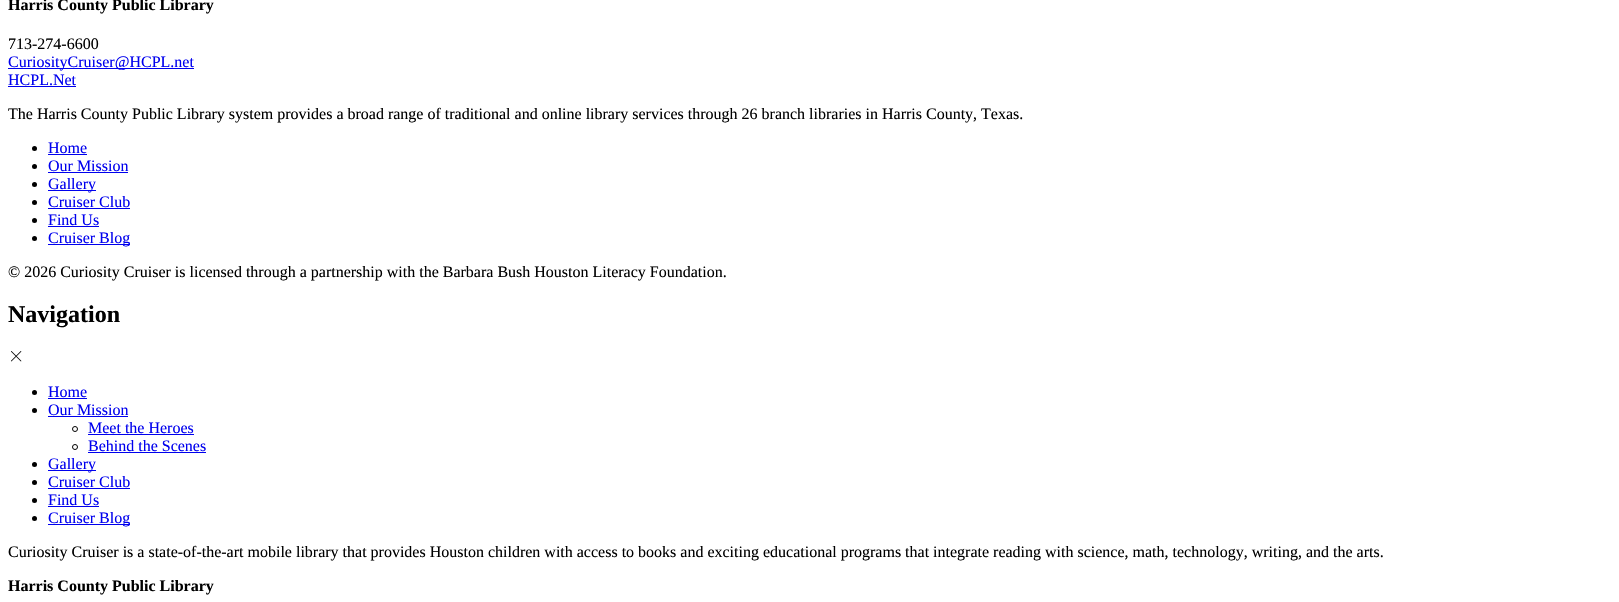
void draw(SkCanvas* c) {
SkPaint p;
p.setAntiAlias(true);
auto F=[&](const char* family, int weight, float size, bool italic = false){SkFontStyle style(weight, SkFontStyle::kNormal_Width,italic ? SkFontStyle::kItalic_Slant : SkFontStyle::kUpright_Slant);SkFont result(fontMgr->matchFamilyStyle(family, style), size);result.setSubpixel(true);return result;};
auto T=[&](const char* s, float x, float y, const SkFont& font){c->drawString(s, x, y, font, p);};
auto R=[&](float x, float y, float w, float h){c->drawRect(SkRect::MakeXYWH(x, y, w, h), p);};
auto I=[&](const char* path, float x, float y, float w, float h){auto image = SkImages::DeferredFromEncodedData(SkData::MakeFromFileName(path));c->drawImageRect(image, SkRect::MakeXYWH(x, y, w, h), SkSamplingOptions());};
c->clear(0xffffffff);
auto f1 = F("Liberation Serif",700,16);
p.setColor(0xff000000);
T("Harris County Public Library",8,10,f1);
auto f2 = F("Liberation Serif",400,16);
T("713-274-6600",8,49,f2);
p.setColor(0xff0000ee);
R(8,68,186,1);
T("CuriosityCruiser@HCPL.net",8,67,f2);
T("HCPL.Net",8,85,f2);
R(8,86,68,1);
p.setColor(0xff000000);
T("The Harris County Public Library system provides a broad range of traditional and online library services through 26 branch libraries in Harris County, Texas.",8,119,f2);
c->drawCircle(34.5,148.5,2.5,p);
p.setColor(0xff0000ee);
T("Home",48,153,f2);
R(48,154,39,1);
p.setColor(0xff000000);
c->drawCircle(34.5,166.5,2.5,p);
p.setColor(0xff0000ee);
T("Our Mission",48,171,f2);
R(48,172,80,1);
p.setColor(0xff000000);
c->drawCircle(34.5,184.5,2.5,p);
p.setColor(0xff0000ee);
R(48,190,48,1);
T("Gallery",48,189,f2);
p.setColor(0xff000000);
c->drawCircle(34.5,202.5,2.5,p);
p.setColor(0xff0000ee);
T("Cruiser Club",48,207,f2);
R(48,208,82,1);
p.setColor(0xff000000);
c->drawCircle(34.5,220.5,2.5,p);
p.setColor(0xff0000ee);
T("Find Us",48,225,f2);
R(48,226,51,1);
p.setColor(0xff000000);
c->drawCircle(34.5,238.5,2.5,p);
p.setColor(0xff0000ee);
R(48,244,82,1);
T("Cruiser Blog",48,243,f2);
p.setColor(0xff000000);
T("© 2026 Curiosity Cruiser is licensed through a partnership with the Barbara Bush Houston Literacy Foundation.",8,277,f2);
auto f3 = F("Liberation Serif",700,24);
T("Navigation",8,322,f3);
I("1.png",11,351,11,11);
c->drawCircle(34.5,392.5,2.5,p);
p.setColor(0xff0000ee);
T("Home",48,397,f2);
R(48,398,39,1);
p.setColor(0xff000000);
c->drawCircle(34.5,410.5,2.5,p);
p.setColor(0xff0000ee);
T("Our Mission",48,415,f2);
R(48,416,80,1);
p.setStroke(true);
p.setStrokeWidth(1);
p.setColor(0xff000000);
c->drawCircle(75,429,2.5,p);
p.setStroke(false);
p.setColor(0xff0000ee);
T("Meet the Heroes",88,433,f2);
R(88,434,106,1);
p.setStroke(true);
p.setColor(0xff000000);
c->drawCircle(75,447,2.5,p);
p.setStroke(false);
p.setColor(0xff0000ee);
T("Behind the Scenes",88,451,f2);
R(88,452,118,1);
p.setColor(0xff000000);
c->drawCircle(34.5,464.5,2.5,p);
p.setColor(0xff0000ee);
R(48,470,48,1);
T("Gallery",48,469,f2);
p.setColor(0xff000000);
c->drawCircle(34.5,482.5,2.5,p);
p.setColor(0xff0000ee);
T("Cruiser Club",48,487,f2);
R(48,488,82,1);
p.setColor(0xff000000);
c->drawCircle(34.5,500.5,2.5,p);
p.setColor(0xff0000ee);
T("Find Us",48,505,f2);
R(48,506,51,1);
p.setColor(0xff000000);
c->drawCircle(34.5,518.5,2.5,p);
p.setColor(0xff0000ee);
R(48,524,82,1);
T("Cruiser Blog",48,523,f2);
p.setColor(0xff000000);
T("Curiosity Cruiser is a state-of-the-art mobile library that provides Houston children with access to books and exciting educational programs that integrate reading with science, math, technology, writing, and the arts.",8,557,f2);
T("Harris County Public Library",8,591,f1);
}
